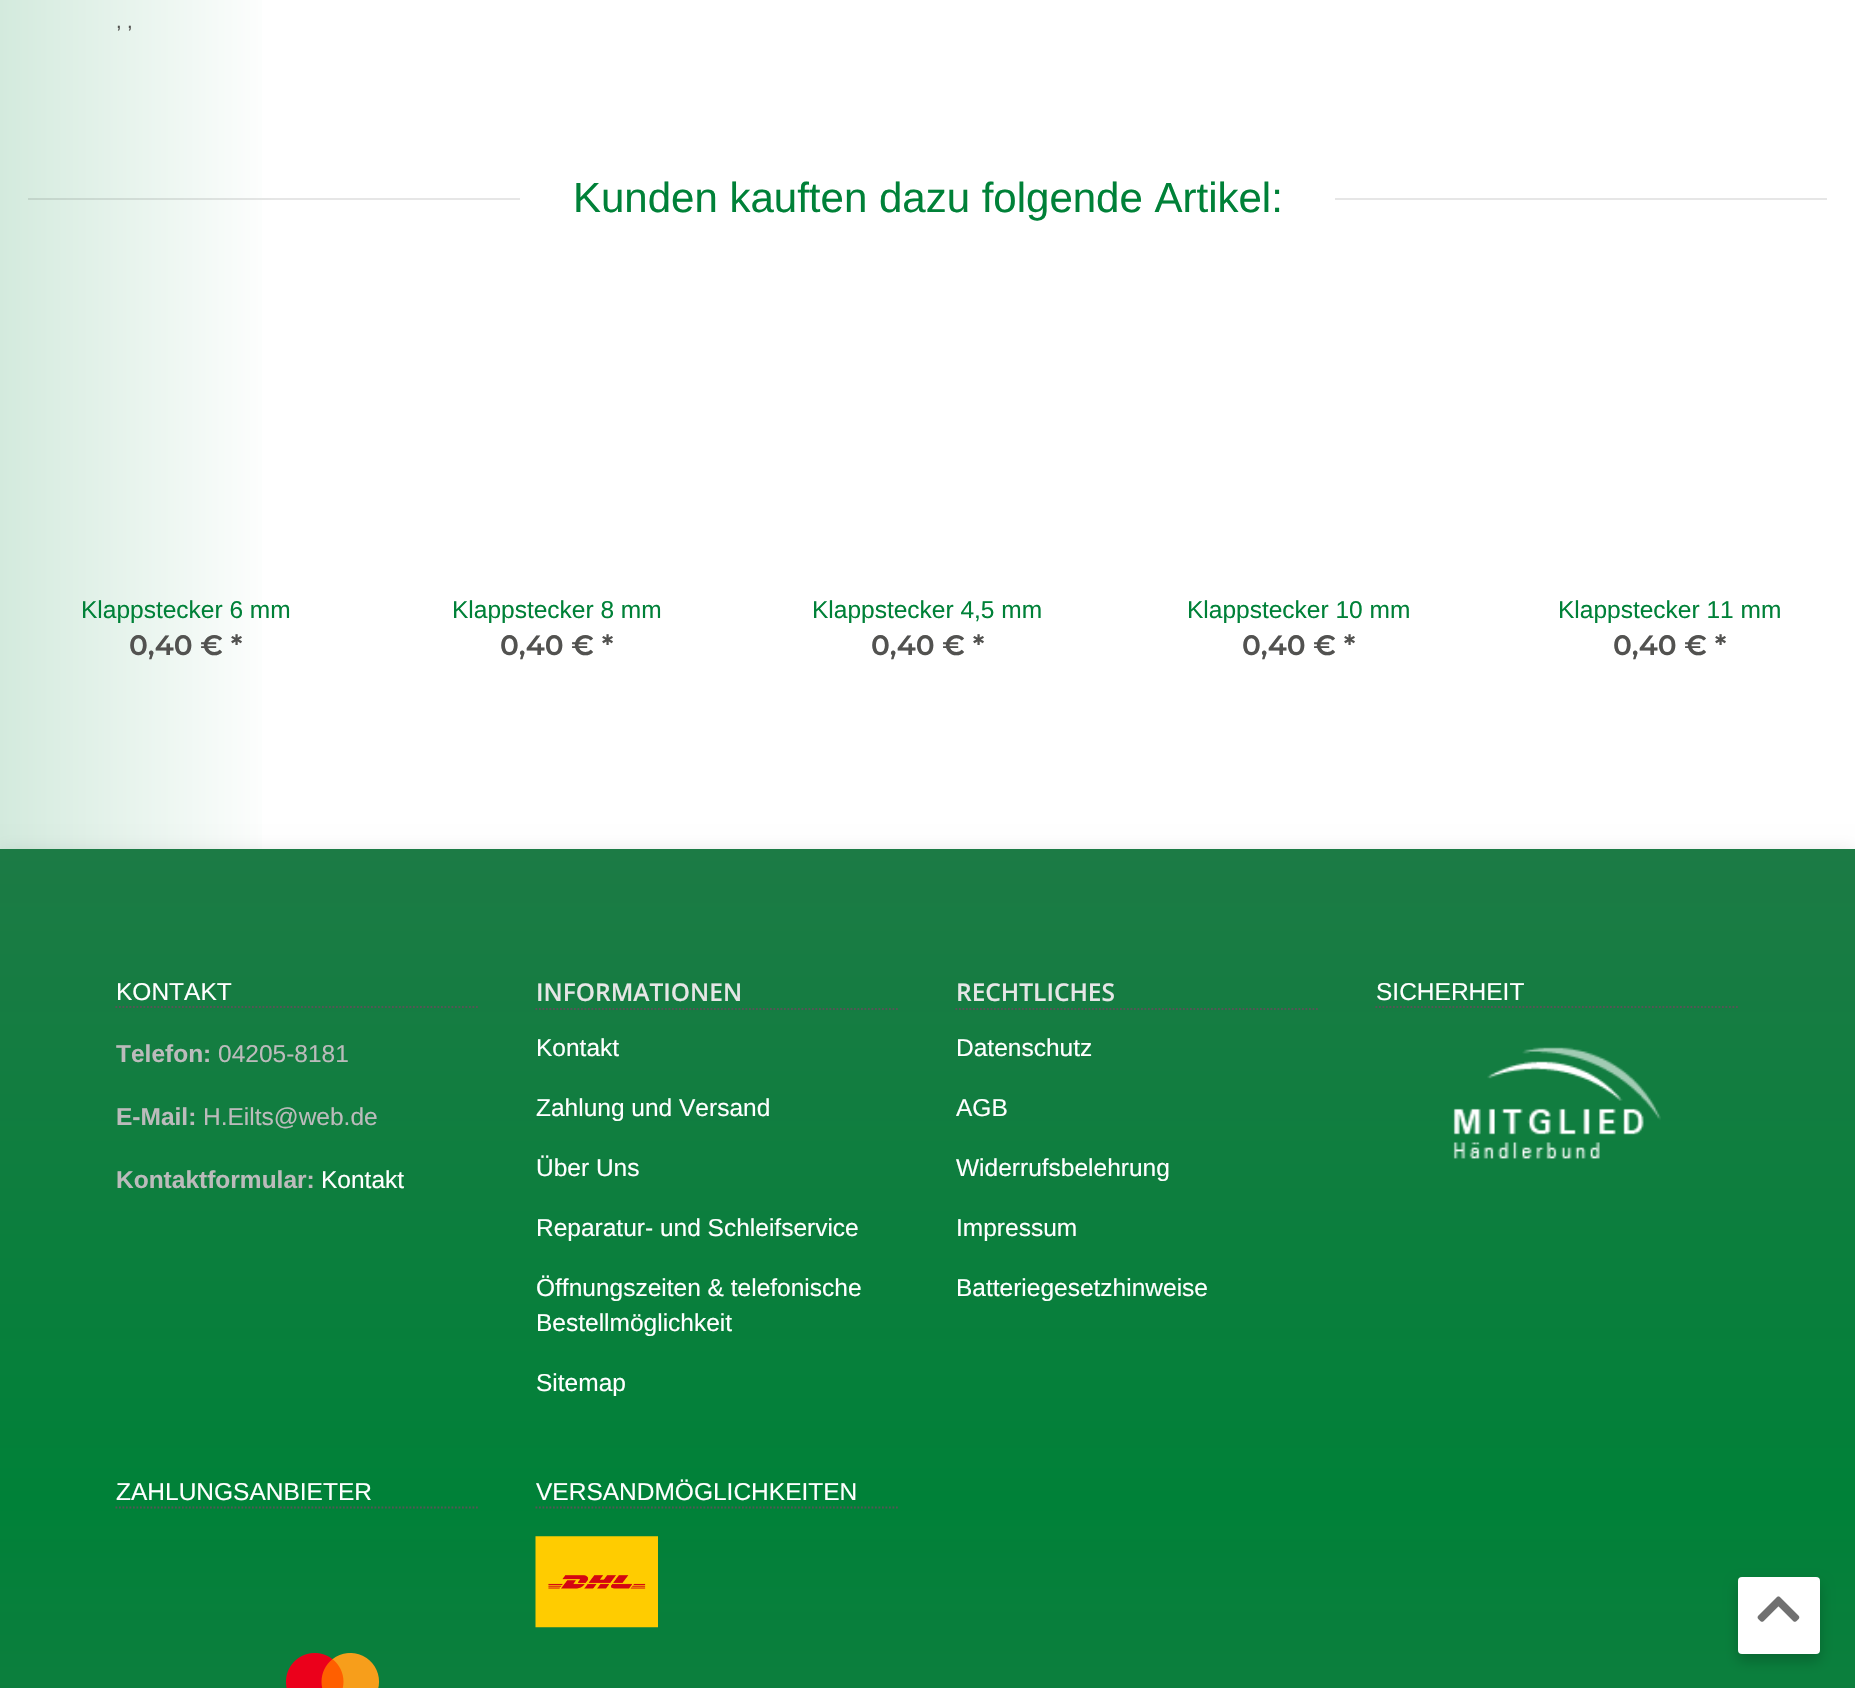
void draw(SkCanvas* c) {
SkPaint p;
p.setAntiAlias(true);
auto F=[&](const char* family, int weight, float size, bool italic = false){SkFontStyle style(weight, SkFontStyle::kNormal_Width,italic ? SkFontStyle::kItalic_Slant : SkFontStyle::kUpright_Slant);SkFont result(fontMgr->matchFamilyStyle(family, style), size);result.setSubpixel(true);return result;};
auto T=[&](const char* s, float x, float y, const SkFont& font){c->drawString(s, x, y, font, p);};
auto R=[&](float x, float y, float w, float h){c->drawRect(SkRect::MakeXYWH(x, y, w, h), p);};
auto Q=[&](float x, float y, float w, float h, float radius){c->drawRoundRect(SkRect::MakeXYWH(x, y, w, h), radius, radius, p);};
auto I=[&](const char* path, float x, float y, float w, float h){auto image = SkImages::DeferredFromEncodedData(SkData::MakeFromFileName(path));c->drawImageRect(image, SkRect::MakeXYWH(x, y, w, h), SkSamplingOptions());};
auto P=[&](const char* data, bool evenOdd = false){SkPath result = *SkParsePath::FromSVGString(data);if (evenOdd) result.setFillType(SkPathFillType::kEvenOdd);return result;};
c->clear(0xffffffff);
{
const SkColor colors[] = {0xffd3eadd,0xffffffff,0xffffffff};
const float stops[] = {0,.15,1};
const SkPoint ends[] = {{0,-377}, {1855,-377}};
p.setShader(SkGradientShader::MakeLinear(ends, colors, stops, 3, SkTileMode::kClamp));
p.setAlpha(255);
}
R(0,0,262,849);
{
const SkColor colors[] = {0xffbed3c7,0xffe6e6e6,0xffe6e6e6};
const float stops[] = {0,.15,1};
const SkPoint ends[] = {{0,-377}, {1855,-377}};
p.setShader(SkGradientShader::MakeLinear(ends, colors, stops, 3, SkTileMode::kClamp));
p.setAlpha(255);
}
R(28,198,492,2);
auto f1 = F("Liberation Sans",400,20);
p.setShader(nullptr);
p.setColor(0xff525250);
T(", ,",116,28,f1);
auto f2 = F("Liberation Sans",400,42);
p.setColor(0xff008138);
T("Kunden kauften dazu folgende Artikel:",573,212,f2);
p.setColor(0xffe6e6e6);
R(1335,198,492,2);
auto f3 = F("Liberation Sans",400,24.5);
p.setColor(0xff008138);
T("Klappstecker 6 mm",81,618,f3);
auto f4 = F("Montserrat",600,28);
p.setColor(0xff525250);
T("0,40 € *",129,655,f4);
p.setColor(0xff008138);
T("Klappstecker 8 mm",452,618,f3);
p.setColor(0xff525250);
T("0,40 € *",500,655,f4);
p.setColor(0xff008138);
T("Klappstecker 4,5 mm",812,618,f3);
p.setColor(0xff525250);
T("0,40 € *",871,655,f4);
p.setColor(0xff008138);
T("Klappstecker 10 mm",1187,618,f3);
p.setColor(0xff525250);
T("0,40 € *",1242,655,f4);
p.setColor(0xff008138);
T("Klappstecker 11 mm",1558,618,f3);
p.setColor(0xff525250);
T("0,40 € *",1613,655,f4);
p.setColor(0x1a000000);
p.setMaskFilter(SkMaskFilter::MakeBlur(kNormal_SkBlurStyle, 9));
c->drawRect(SkRect::MakeXYWH(0,851,1855,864),p);
p.setMaskFilter(nullptr);
{
const SkColor colors[] = {0xff1c7b45,0xff008138,0xff1c7b45};
const float stops[] = {0,.6,1};
const SkPoint ends[] = {{928,849}, {928,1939}};
p.setShader(SkGradientShader::MakeLinear(ends, colors, stops, 3, SkTileMode::kClamp));
p.setAlpha(255);
}
R(0,849,1855,839);
p.setStroke(true);
p.setStrokeWidth(1.8);
p.setShader(nullptr);
p.setColor(0xff555555);
p.setPathEffect(SkDashPathEffect::Make({{1.75f,1.75f}}, 0));
c->drawPath(P("M115.5 1007h364"),p);
p.setPathEffect(nullptr);
p.setStroke(false);
p.setColor(0xffffffff);
T("KONTAKT",116,1000,f3);
auto f5 = F("Liberation Sans",700,24.5);
p.setColor(0xffbbbbbb);
T("Telefon:",116,1062,f5);
T("04205-8181",218,1062,f3);
T("E-Mail:",116,1125,f5);
T("H.Eilts@web.de",203,1125,f3);
T("Kontaktformular:",116,1188,f5);
p.setColor(0xffffffff);
T("Kontakt",321,1188,f3);
p.setStroke(true);
p.setColor(0xff555555);
p.setPathEffect(SkDashPathEffect::Make({{1.75f,1.75f}}, 0));
c->drawPath(P("M535.5 1009h364"),p);
p.setPathEffect(nullptr);
auto f6 = F("Open Sans",600,24.5);
p.setStroke(false);
p.setColor(0xffe6e6e6);
T("INFORMATIONEN",536,1001,f6);
p.setColor(0xffffffff);
T("Kontakt",536,1056,f3);
T("Zahlung und Versand",536,1116,f3);
T("Über Uns",536,1176,f3);
T("Reparatur- und Schleifservice",536,1236,f3);
T("Öffnungszeiten & telefonische",536,1296,f3);
T("Bestellmöglichkeit",536,1331,f3);
T("Sitemap",536,1391,f3);
p.setStroke(true);
p.setColor(0xff555555);
p.setPathEffect(SkDashPathEffect::Make({{1.75f,1.75f}}, 0));
c->drawPath(P("M955.5 1009h364"),p);
p.setPathEffect(nullptr);
p.setStroke(false);
p.setColor(0xffe6e6e6);
T("RECHTLICHES",956,1001,f6);
p.setColor(0xffffffff);
T("Datenschutz",956,1056,f3);
T("AGB",956,1116,f3);
T("Widerrufsbelehrung",956,1176,f3);
T("Impressum",956,1236,f3);
T("Batteriegesetzhinweise",956,1296,f3);
p.setStroke(true);
p.setColor(0xff555555);
p.setPathEffect(SkDashPathEffect::Make({{1.75f,1.75f}}, 0));
c->drawPath(P("M1375.5 1007h364"),p);
p.setPathEffect(nullptr);
p.setStroke(false);
p.setColor(0xffffffff);
T("SICHERHEIT",1376,1000,f3);
I("1.png",1453,1047,208,112);
p.setStroke(true);
p.setColor(0xff555555);
p.setPathEffect(SkDashPathEffect::Make({{1.75f,1.75f}}, 0));
c->drawPath(P("M115.5 1507.5h364"),p);
p.setPathEffect(nullptr);
p.setStroke(false);
p.setColor(0xffffffff);
T("ZAHLUNGSANBIETER",116,1500,f3);
I("2.png",285,1653,95,35);
p.setStroke(true);
p.setColor(0xff555555);
p.setPathEffect(SkDashPathEffect::Make({{1.75f,1.75f}}, 0));
c->drawPath(P("M535.5 1507.5h364"),p);
p.setPathEffect(nullptr);
p.setStroke(false);
p.setColor(0xffffffff);
T("VERSANDMÖGLICHKEITEN",536,1500,f3);
I("3.png",535,1536,123,92);
p.setColor(0x33000000);
p.setMaskFilter(SkMaskFilter::MakeBlur(kNormal_SkBlurStyle, 7));
c->drawRoundRect(SkRect::MakeXYWH(1738,1584,82,77),4,4,p);
p.setMaskFilter(nullptr);
p.setColor(0xffffffff);
Q(1738,1577,82,77,4);
I("4.png",1757,1596,43,26);
}
